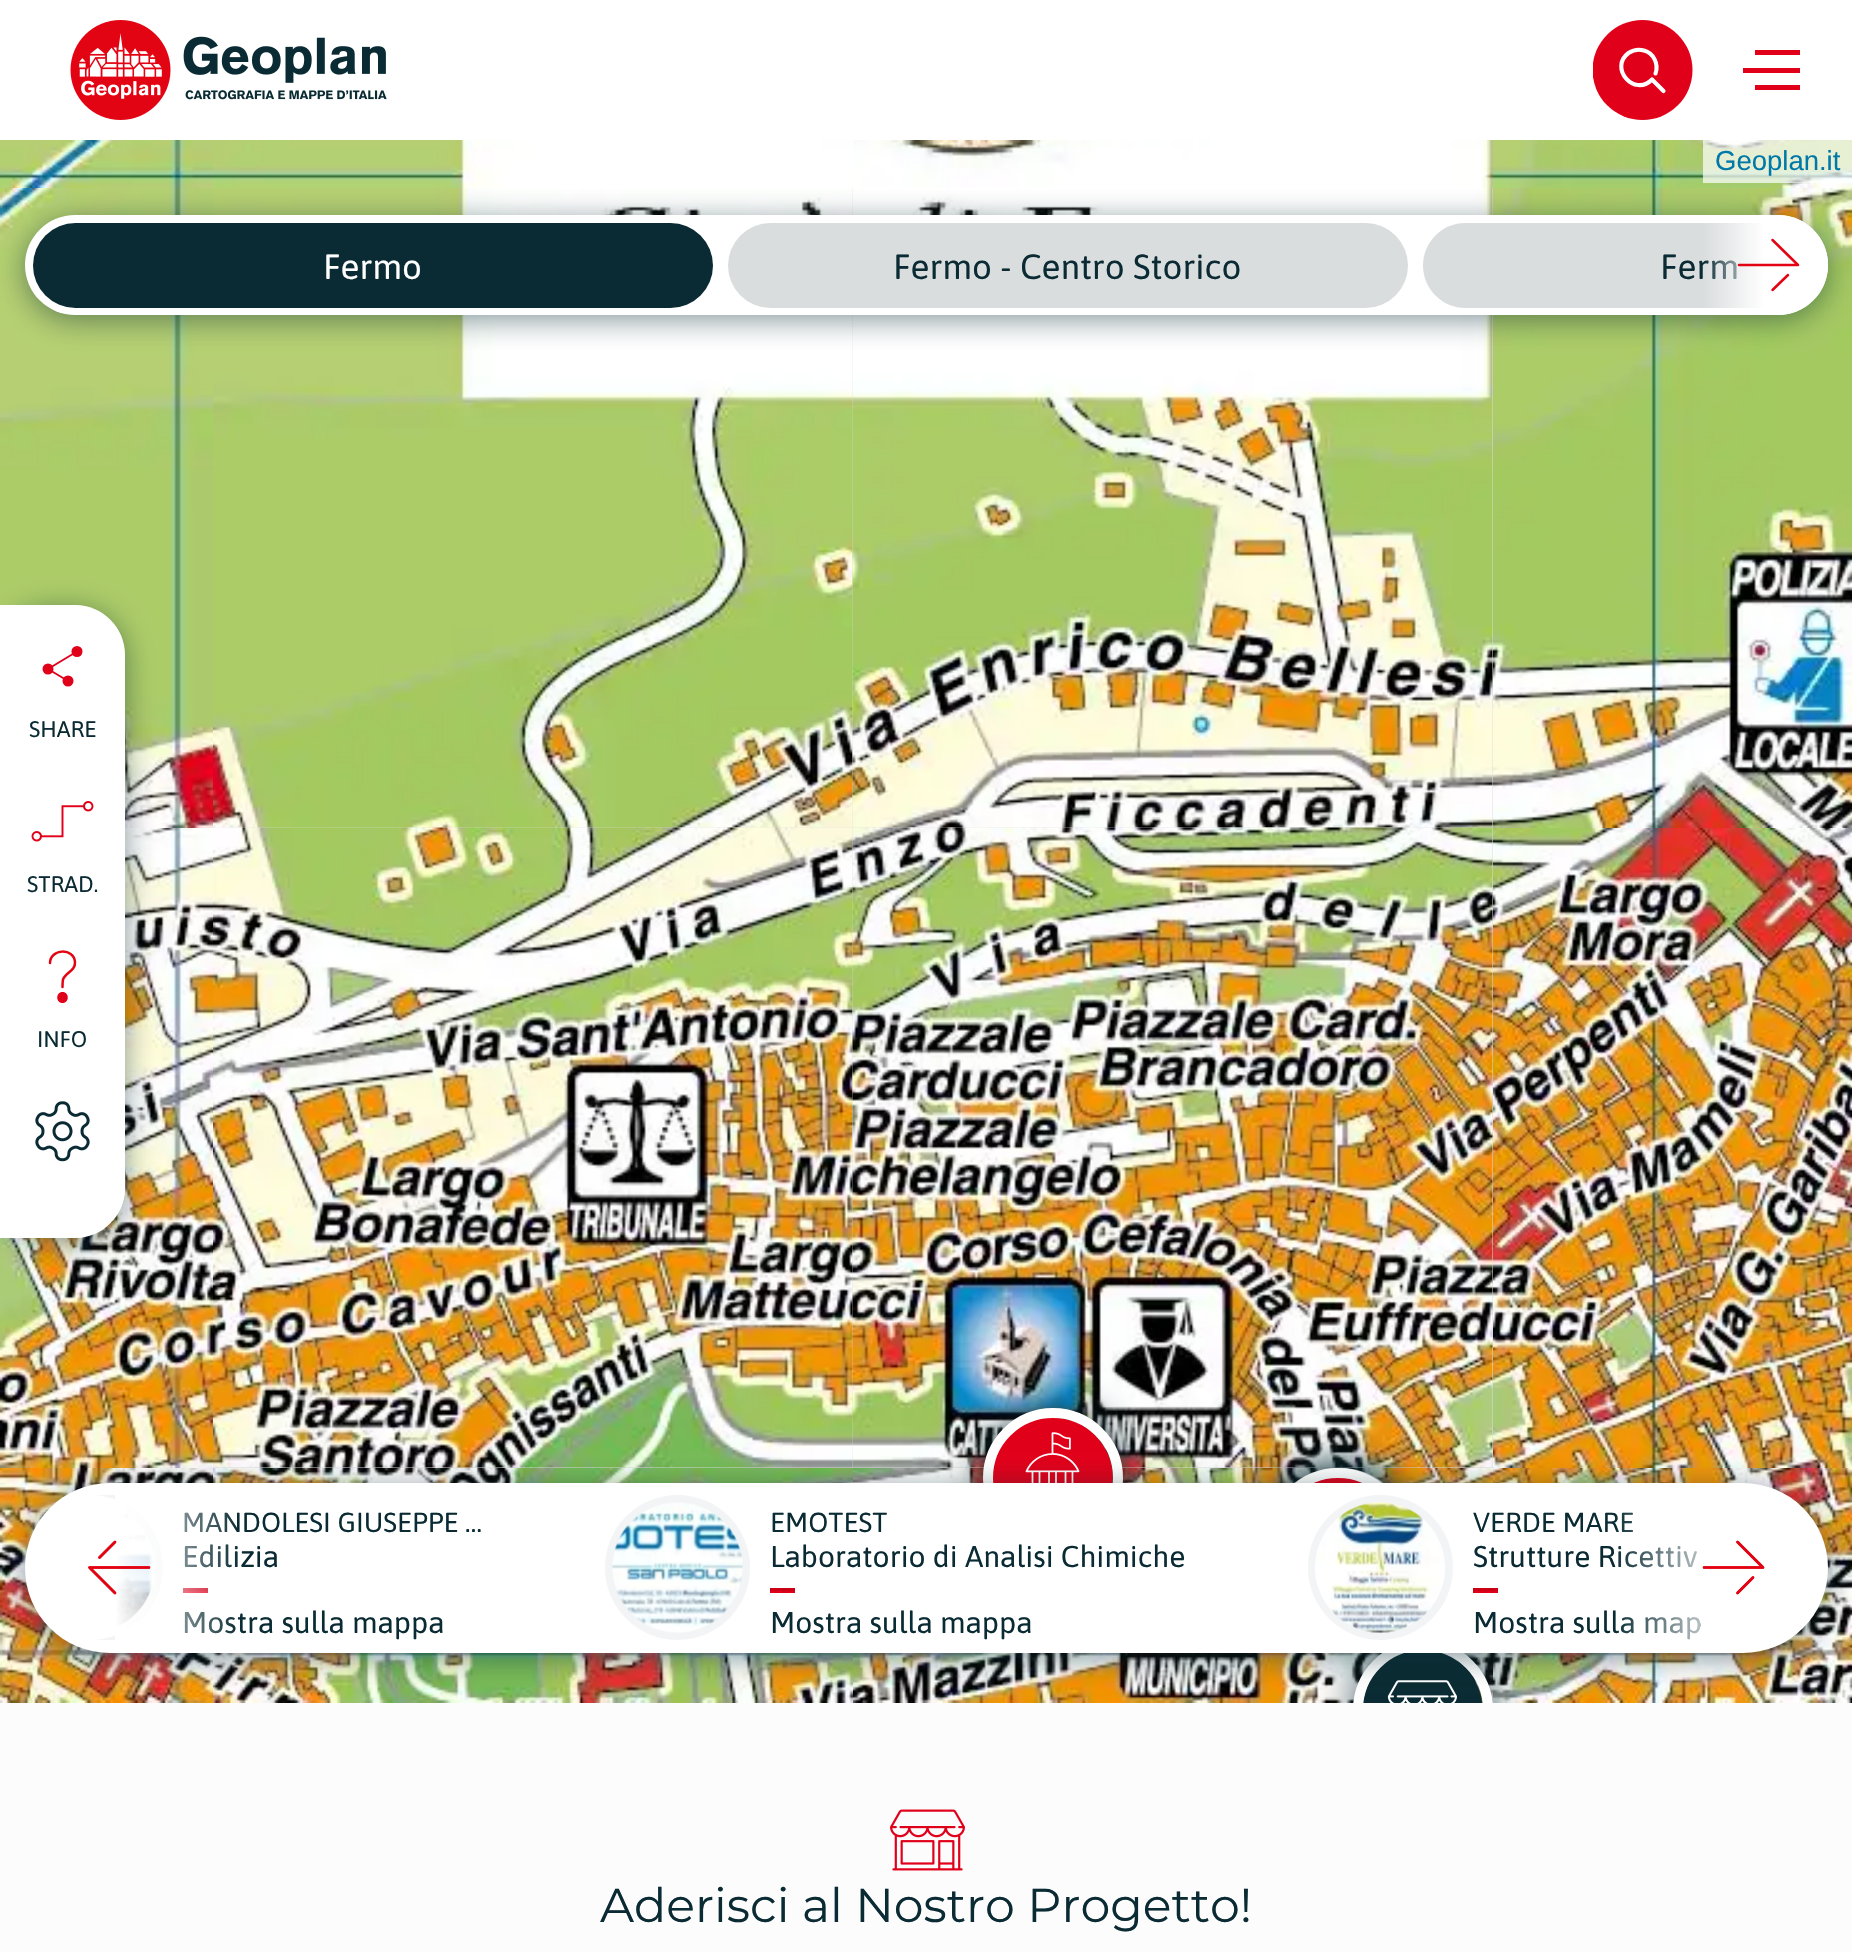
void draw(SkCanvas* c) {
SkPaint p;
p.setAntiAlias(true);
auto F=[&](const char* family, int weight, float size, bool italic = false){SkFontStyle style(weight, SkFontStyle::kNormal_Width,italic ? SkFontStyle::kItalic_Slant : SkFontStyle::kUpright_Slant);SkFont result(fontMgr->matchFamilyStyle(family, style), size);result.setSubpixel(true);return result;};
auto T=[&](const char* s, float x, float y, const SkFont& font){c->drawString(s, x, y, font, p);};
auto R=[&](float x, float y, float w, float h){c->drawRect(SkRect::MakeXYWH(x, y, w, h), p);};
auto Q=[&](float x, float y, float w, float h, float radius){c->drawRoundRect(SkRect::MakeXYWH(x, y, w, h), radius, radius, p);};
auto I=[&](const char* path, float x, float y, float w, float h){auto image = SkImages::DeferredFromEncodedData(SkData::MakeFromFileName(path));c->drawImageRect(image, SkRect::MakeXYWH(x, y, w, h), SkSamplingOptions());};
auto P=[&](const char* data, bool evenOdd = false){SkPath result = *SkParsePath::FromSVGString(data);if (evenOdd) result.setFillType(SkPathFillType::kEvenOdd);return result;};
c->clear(0xffffffff);
I("1.png",70,20,317,100);
c->save();
c->clipRect(SkRect::MakeXYWH(1593,20,100,100));
p.setColor(0xffe1001a);
c->drawCircle(1642.5,70,50,p);
c->restore();
p.setStroke(true);
p.setStrokeWidth(4.1);
p.setStrokeCap(SkPaint::kRound_Cap);
p.setStrokeJoin(SkPaint::kRound_Join);
p.setColor(0xffffffff);
c->drawPath(P("M1655.5 73.5c3.5-9.5-2-20.5-11.5-23c-5-1.5-11-.5-15.5 2.5c-20 15 6 44.5 23.5 26.5m0 0l11.5 11.5"),p);
p.setStroke(false);
p.setColor(0xffe1001a);
R(1755,50,45,5);
R(1743,68,57,5);
R(1755,85,45,5);
p.setColor(0xffdddddd);
R(213,188,1280,1280);
I("2.png",0,140,213,48);
I("3.png",213,140,640,48);
I("4.png",853,140,640,48);
I("5.png",1493,140,359,48);
I("6.png",0,188,213,640);
I("7.png",213,188,640,640);
I("8.png",852,188,641,640);
I("9.png",1493,188,359,640);
I("10.png",0,828,213,640);
I("11.png",213,827,640,641);
I("12.png",852,827,641,641);
I("13.png",1493,828,359,640);
I("14.png",0,1468,213,235);
I("15.png",213,1468,640,235);
I("16.png",853,1468,640,235);
I("17.png",1493,1468,359,235);
p.setColor(0xbf0a2b33);
p.setMaskFilter(SkMaskFilter::MakeBlur(kNormal_SkBlurStyle, 19));
c->drawRoundRect(SkRect::MakeXYWH(983,1408,140,140),70,70,p);
p.setMaskFilter(nullptr);
I("18.png",993,1418,120,65);
p.setStroke(true);
p.setStrokeWidth(10);
p.setStrokeCap(SkPaint::kButt_Cap);
p.setStrokeJoin(SkPaint::kMiter_Join);
p.setColor(0xffffffff);
c->drawCircle(1053,1478,65,p);
p.setStroke(false);
p.setColor(0xbf0a2b33);
p.setMaskFilter(SkMaskFilter::MakeBlur(kNormal_SkBlurStyle, 19));
c->drawRoundRect(SkRect::MakeXYWH(1270,1468,140,140),70,70,p);
p.setMaskFilter(nullptr);
I("20.png",1329,1478,33,5);
p.setStroke(true);
p.setColor(0xffffffff);
c->drawCircle(1340,1538,65,p);
p.setStroke(false);
p.setColor(0xbf0a2b33);
p.setMaskFilter(SkMaskFilter::MakeBlur(kNormal_SkBlurStyle, 19));
c->drawRoundRect(SkRect::MakeXYWH(1268,1468,140,140),70,70,p);
p.setMaskFilter(nullptr);
I("19.png",1314,1478,48,5);
p.setStroke(true);
p.setColor(0xffffffff);
c->drawCircle(1338,1538,65,p);
p.setStroke(false);
p.setColor(0xbf0a2b33);
p.setMaskFilter(SkMaskFilter::MakeBlur(kNormal_SkBlurStyle, 19));
c->drawRoundRect(SkRect::MakeXYWH(1353,1640,140,140),70,70,p);
p.setMaskFilter(nullptr);
I("21.png",1363,1653,119,50);
p.setStroke(true);
p.setColor(0xffffffff);
c->drawCircle(1423,1710,65,p);
p.setStroke(false);
p.setColor(0xb3ffffff);
R(1703,140,149,43);
auto f1 = F("Liberation Sans",400,27.5);
p.setColor(0xff0078a8);
T("Geoplan.it",1715,170,f1);
p.setColor(0x800a2b33);
p.setMaskFilter(SkMaskFilter::MakeBlur(kNormal_SkBlurStyle, 15));
c->drawRoundRect(SkRect::MakeXYWH(25,220,1803,100),50,50,p);
p.setMaskFilter(nullptr);
p.setColor(0xffffffff);
Q(25,215,1803,100,50);
c->save();
c->clipPath(P("M75 215h1703c27.5 0 50 22.5 50 50c0 27.5-22.5 50-50 50h-1703c-27.5 0-50-22.5-50-50c0-27.5 22.5-50 50-50z"),true);
p.setColor(0xffdaddde);
c->drawPath(P("M1465.5 223h362.5v85h-362.5c-23.5 0-42.5-19-42.5-42.5c0-23.5 19-42.5 42.5-42.5z"),p);
c->restore();
auto f2 = F("Asap",400,35);
p.setColor(0xff0a2b33);
T("Ferm",1660,279,f2);
{
const SkColor colors[] = {0xffffffff,0x00ffffff};
const float stops[] = {.5,1};
const SkPoint ends[] = {{1828,265}, {1703,265}};
p.setShader(SkGradientShader::MakeLinear(ends, colors, stops, 2, SkTileMode::kClamp));
p.setAlpha(255);
}
c->drawPath(P("M1703 215h75c27.5 0 50 22.5 50 50c0 27.5-22.5 50-50 50h-75z"),p);
p.setShader(nullptr);
p.setColor(0xff0a2b33);
Q(33,223,680,85,42.5);
p.setColor(0xffffffff);
T("Fermo",323,279,f2);
p.setColor(0xffdaddde);
Q(728,223,680,85,42.5);
p.setColor(0xff0a2b33);
T("Fermo - Centro Storico",893,279,f2);
p.setStroke(true);
p.setStrokeWidth(2.5);
p.setStrokeCap(SkPaint::kRound_Cap);
p.setStrokeJoin(SkPaint::kRound_Join);
p.setColor(0xffe30413);
c->drawPath(P("M1772.5 290l15.5-15m10-10h-59m59 0l-25.5-25"),p);
c->save();
c->clipPath(P("M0 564h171v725h-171zm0 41h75c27.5 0 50 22.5 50 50v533c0 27.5-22.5 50-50 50h-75z",true),true);
p.setStroke(false);
p.setColor(0x800a2b33);
p.setMaskFilter(SkMaskFilter::MakeBlur(kNormal_SkBlurStyle, 15));
c->drawRoundRect(SkRect::MakeXYWH(0,610,125,633),50,50,p);
p.setMaskFilter(nullptr);
c->restore();
p.setColor(0xffffffff);
c->drawPath(P("M0 605h75c27.5 0 50 22.5 50 50v533c0 27.5-22.5 50-50 50h-75z"),p);
p.setColor(0xffe1001a);
c->drawCircle(48,669,5.5,p);
c->drawCircle(77,651.5,5.5,p);
c->drawCircle(68,681,5.5,p);
p.setStroke(true);
p.setStrokeWidth(1.8);
p.setStrokeCap(SkPaint::kButt_Cap);
p.setStrokeJoin(SkPaint::kMiter_Join);
c->drawPath(P("M77 651.5l-29 17.5l20 12"),p);
auto f3 = F("Asap",400,22.5);
p.setStroke(false);
p.setColor(0xff0a2b33);
T("SHARE",29,737,f3);
I("22.png",31,801,63,41);
T("STRAD.",27,892,f3);
p.setStroke(true);
p.setStrokeWidth(2.5);
p.setStrokeCap(SkPaint::kRound_Cap);
p.setStrokeJoin(SkPaint::kRound_Join);
p.setColor(0xffe30412);
c->drawPath(P("M50 963c0-14.5 24-15.5 25-1c.5 9.5-9.5 10-12 17.5c-.5 2.5-.5 5-.5 7.5"),p);
p.setStroke(false);
p.setColor(0xffe1001a);
c->drawPath(P("M62.5 1003c7 0 7-11 0-11c-7 0-7 11 0 11z"),p);
p.setColor(0xff0a2b33);
T("INFO",37,1047,f3);
I("23.png",35,1101,55,61);
p.setColor(0x800a2b33);
p.setMaskFilter(SkMaskFilter::MakeBlur(kNormal_SkBlurStyle, 15));
c->drawRoundRect(SkRect::MakeXYWH(25,1488,1803,170),85,85,p);
p.setMaskFilter(nullptr);
p.setColor(0xffffffff);
Q(25,1483,1803,170,85);
p.setColor(0xfff3f4f5);
c->drawPath(P("M115 1495h-24.5c40 0 72.5 32.5 72.5 72.5c0 40-32.5 72.5-72.5 72.5h24.5z"),p);
I("24.png",116,1507,39,121);
auto f4 = F("Asap",400,27.5);
p.setColor(0xff0a2b33);
T("MANDOLESI GIUSEPPE …",182,1532,f4);
auto f5 = F("Asap",400,30);
T("Edilizia",182,1567,f5);
p.setColor(0xffe1001a);
R(183,1591,25,2);
p.setColor(0xffcb0017);
R(183,1588,25,3);
p.setColor(0xff0a2b33);
T("Mostra sulla mappa",182,1633,f5);
{
const SkColor colors[] = {0xffffffff,0x00ffffff};
const float stops[] = {0,1};
const SkPoint ends[] = {{115,1568}, {240,1568}};
p.setShader(SkGradientShader::MakeLinear(ends, colors, stops, 2, SkTileMode::kClamp));
p.setAlpha(255);
}
R(115,1499,122,137);
p.setStroke(true);
p.setShader(nullptr);
p.setColor(0xffe30413);
c->drawPath(P("M115 1542l-15.5 15.5m-10 10h59.5m-59.5 0l25.5 25.5"),p);
c->drawPath(P("M115 1542l-15.5 15.5m-10 10h59.5m-59.5 0l25.5 25.5"),p);
p.setStroke(false);
p.setColor(0xfff3f4f5);
c->drawCircle(677.5,1567.5,72.5,p);
I("25.png",612,1502,131,131);
p.setColor(0xff0a2b33);
T("EMOTEST",770,1532,f4);
T("Laboratorio di Analisi Chimiche",770,1567,f5);
p.setColor(0xffe1001a);
R(770,1591,25,2);
p.setColor(0xffcb0017);
R(770,1588,25,3);
p.setColor(0xff0a2b33);
T("Mostra sulla mappa",770,1633,f5);
p.setColor(0xfff3f4f5);
c->drawCircle(1380.5,1567.5,72.5,p);
I("26.png",1315,1502,130,131);
p.setColor(0xff0a2b33);
T("VERDE MARE",1473,1532,f4);
T("Strutture Ricettiv",1473,1567,f5);
p.setColor(0xffe1001a);
R(1473,1591,25,2);
p.setColor(0xffcb0017);
R(1473,1588,25,3);
p.setColor(0xff0a2b33);
T("Mostra sulla map",1473,1633,f5);
{
const SkColor colors[] = {0xffffffff,0x00ffffff};
const float stops[] = {0,1};
const SkPoint ends[] = {{1738,1568}, {1613,1568}};
p.setShader(SkGradientShader::MakeLinear(ends, colors, stops, 2, SkTileMode::kClamp));
p.setAlpha(255);
}
R(1616,1512,84,128);
p.setStroke(true);
p.setShader(nullptr);
p.setColor(0xffe30413);
c->drawPath(P("M1737.5 1593l15.5-15.5m10-10h-59m59 0l-25.5-25.5"),p);
c->drawPath(P("M1737.5 1593l15.5-15.5m10-10h-59m59 0l-25.5-25.5"),p);
p.setStroke(false);
{
const SkColor colors[] = {0xfffcfcfc,0xfffcfcfc,0xffffffff};
const float stops[] = {0,.5,1};
const SkPoint ends[] = {{926,1703}, {926,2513}};
p.setShader(SkGradientShader::MakeLinear(ends, colors, stops, 3, SkTileMode::kClamp));
p.setAlpha(255);
}
R(0,1703,1852,249);
I("27.png",890,1809,75,62);
auto f6 = F("Montserrat",400,47.5);
p.setShader(nullptr);
p.setColor(0xff0a2b33);
T("Aderisci al Nostro Progetto!",600,1922,f6);
}
